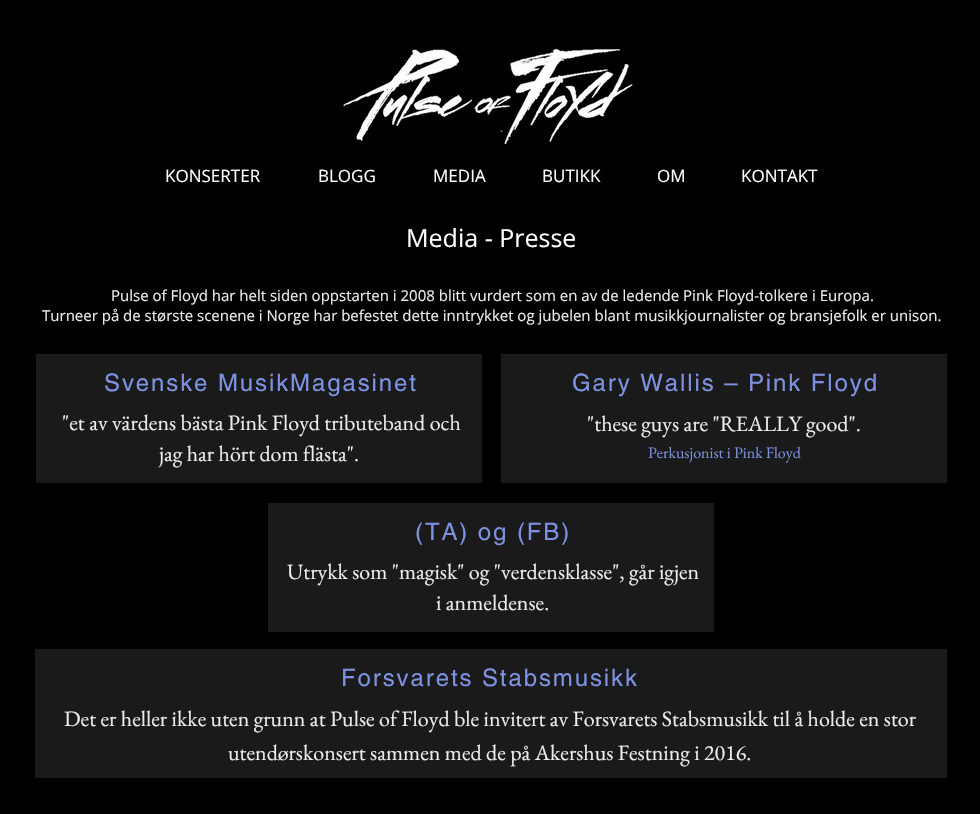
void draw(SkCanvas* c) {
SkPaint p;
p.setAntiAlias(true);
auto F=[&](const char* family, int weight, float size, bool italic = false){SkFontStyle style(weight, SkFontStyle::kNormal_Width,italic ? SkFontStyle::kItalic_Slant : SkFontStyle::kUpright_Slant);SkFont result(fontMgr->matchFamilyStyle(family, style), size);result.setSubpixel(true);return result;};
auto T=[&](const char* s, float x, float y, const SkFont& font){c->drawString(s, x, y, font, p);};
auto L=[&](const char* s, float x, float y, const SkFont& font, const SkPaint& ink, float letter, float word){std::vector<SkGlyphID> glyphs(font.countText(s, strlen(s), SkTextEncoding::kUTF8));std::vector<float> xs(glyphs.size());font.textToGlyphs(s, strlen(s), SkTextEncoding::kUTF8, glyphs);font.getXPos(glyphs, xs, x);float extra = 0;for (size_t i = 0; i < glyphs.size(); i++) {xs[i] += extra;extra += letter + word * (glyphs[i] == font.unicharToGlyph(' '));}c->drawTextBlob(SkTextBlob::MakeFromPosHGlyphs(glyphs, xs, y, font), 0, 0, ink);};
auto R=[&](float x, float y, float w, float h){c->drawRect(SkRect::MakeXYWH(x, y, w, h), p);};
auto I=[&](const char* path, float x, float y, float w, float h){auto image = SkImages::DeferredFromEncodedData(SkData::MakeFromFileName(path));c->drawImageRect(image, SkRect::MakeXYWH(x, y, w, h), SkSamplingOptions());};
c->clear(0xff000000);
I("1.png",343,48,290,97);
auto f1 = F("Open Sans",400,17);
p.setColor(0xffffffff);
T("KONSERTER",165,182,f1);
T("BLOGG",318,182,f1);
T("MEDIA",433,182,f1);
T("BUTIKK",542,182,f1);
T("OM",657,182,f1);
T("KONTAKT",741,182,f1);
auto f2 = F("Open Sans",400,25);
T("Media - Presse",406,247,f2);
auto f3 = F("Open Sans",400,15);
p.setColor(0xffececec);
T("Pulse of Floyd har helt siden oppstarten i 2008 blitt vurdert som en av de ledende Pink Floyd-tolkere i Europa.",111,301,f3);
T("Turneer på de største scenene i Norge har befestet dette inntrykket og jubelen blant musikkjournalister og bransjefolk er unison.",42,321,f3);
p.setColor(0xff1a1a1a);
R(36,354,446,129);
auto f4 = F("helvetica",400,24);
p.setColor(0xff7c91df);
L("Svenske MusikMagasinet",104,391,f4,p,1.9,0);
auto f5 = F("EB Garamond",400,22);
p.setColor(0xffececec);
T("\"et av värdens bästa Pink Floyd tributeband och",62,430,f5);
T("jag har hört dom flästa\".",159,461,f5);
p.setColor(0xff1a1a1a);
R(501,354,446,129);
p.setColor(0xff7c91df);
L("Gary Wallis – Pink Floyd",572,391,f4,p,1.9,0);
p.setColor(0xffececec);
T("\"these guys are \"REALLY good\".",587,431,f5);
auto f6 = F("EB Garamond",400,16);
p.setColor(0xff7c91df);
T("Perkusjonist i Pink Floyd",648,458,f6);
p.setColor(0xff1a1a1a);
R(268,503,446,129);
p.setColor(0xff7c91df);
L("(TA) og (FB)",415,540,f4,p,1.9,0);
p.setColor(0xffececec);
T("Utrykk som \"magisk\" og \"verdensklasse\", går igjen",287,579,f5);
T("i anmeldense.",436,610,f5);
p.setColor(0xff1a1a1a);
R(35,649,912,129);
p.setColor(0xff7c91df);
L("Forsvarets Stabsmusikk",341,686,f4,p,1.9,0);
p.setColor(0xffececec);
T("Det er heller ikke uten grunn at Pulse of Floyd ble invitert av Forsvarets Stabsmusikk til å holde en stor",64,726,f5);
T("utendørskonsert sammen med de på Akershus Festning i 2016.",228,760,f5);
}
